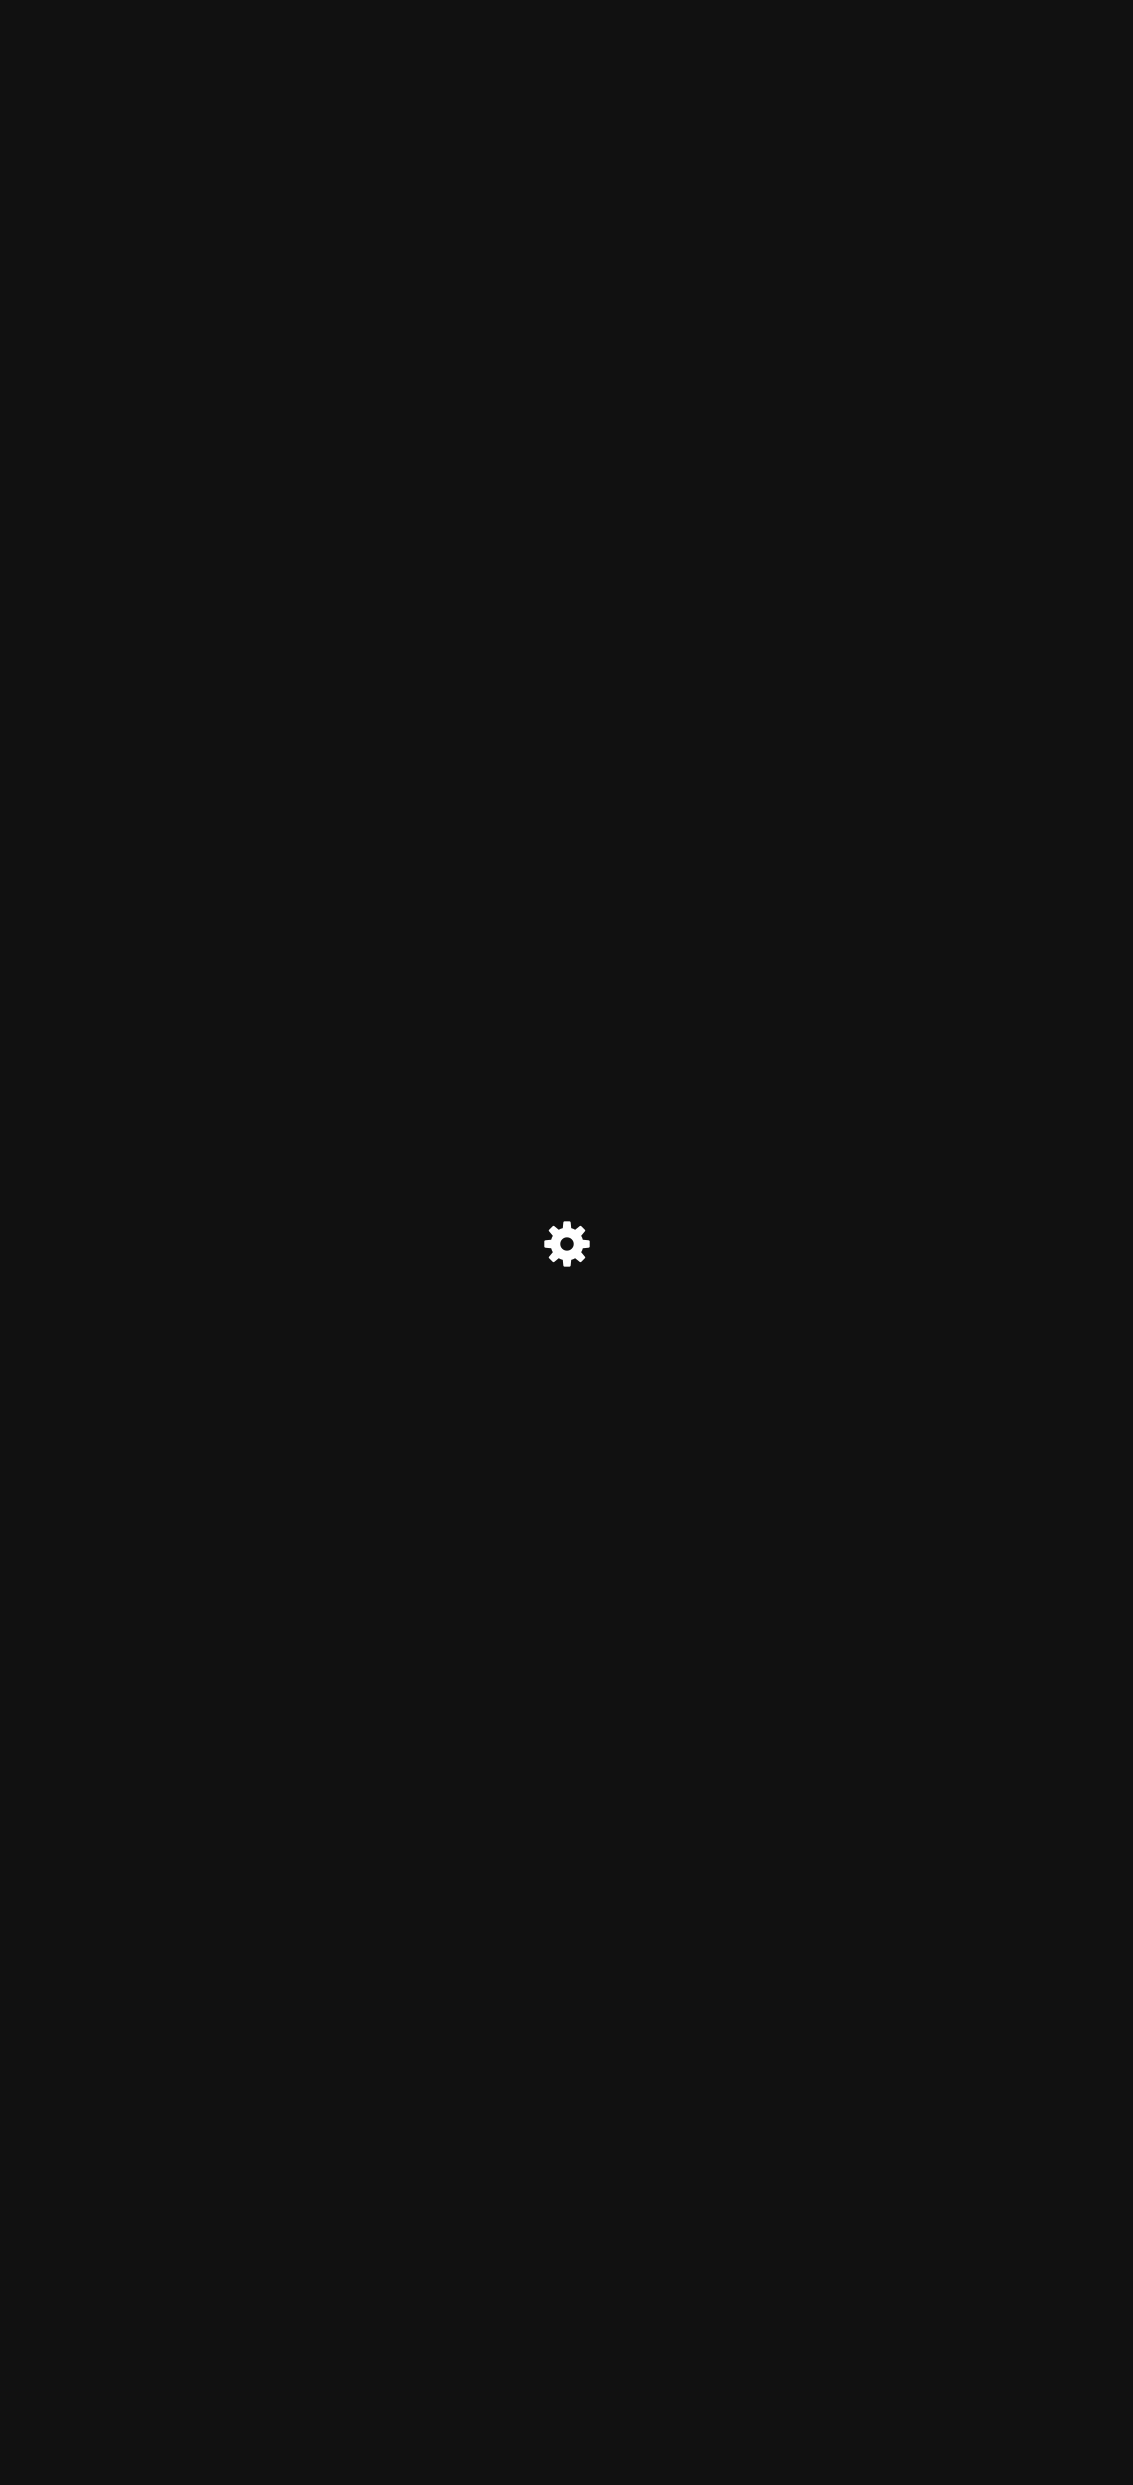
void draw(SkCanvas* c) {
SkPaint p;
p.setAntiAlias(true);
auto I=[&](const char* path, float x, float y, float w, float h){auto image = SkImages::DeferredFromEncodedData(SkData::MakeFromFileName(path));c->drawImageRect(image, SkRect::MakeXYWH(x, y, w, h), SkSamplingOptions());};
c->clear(0xff111111);
I("1.png",544,1221,46,46);
}
